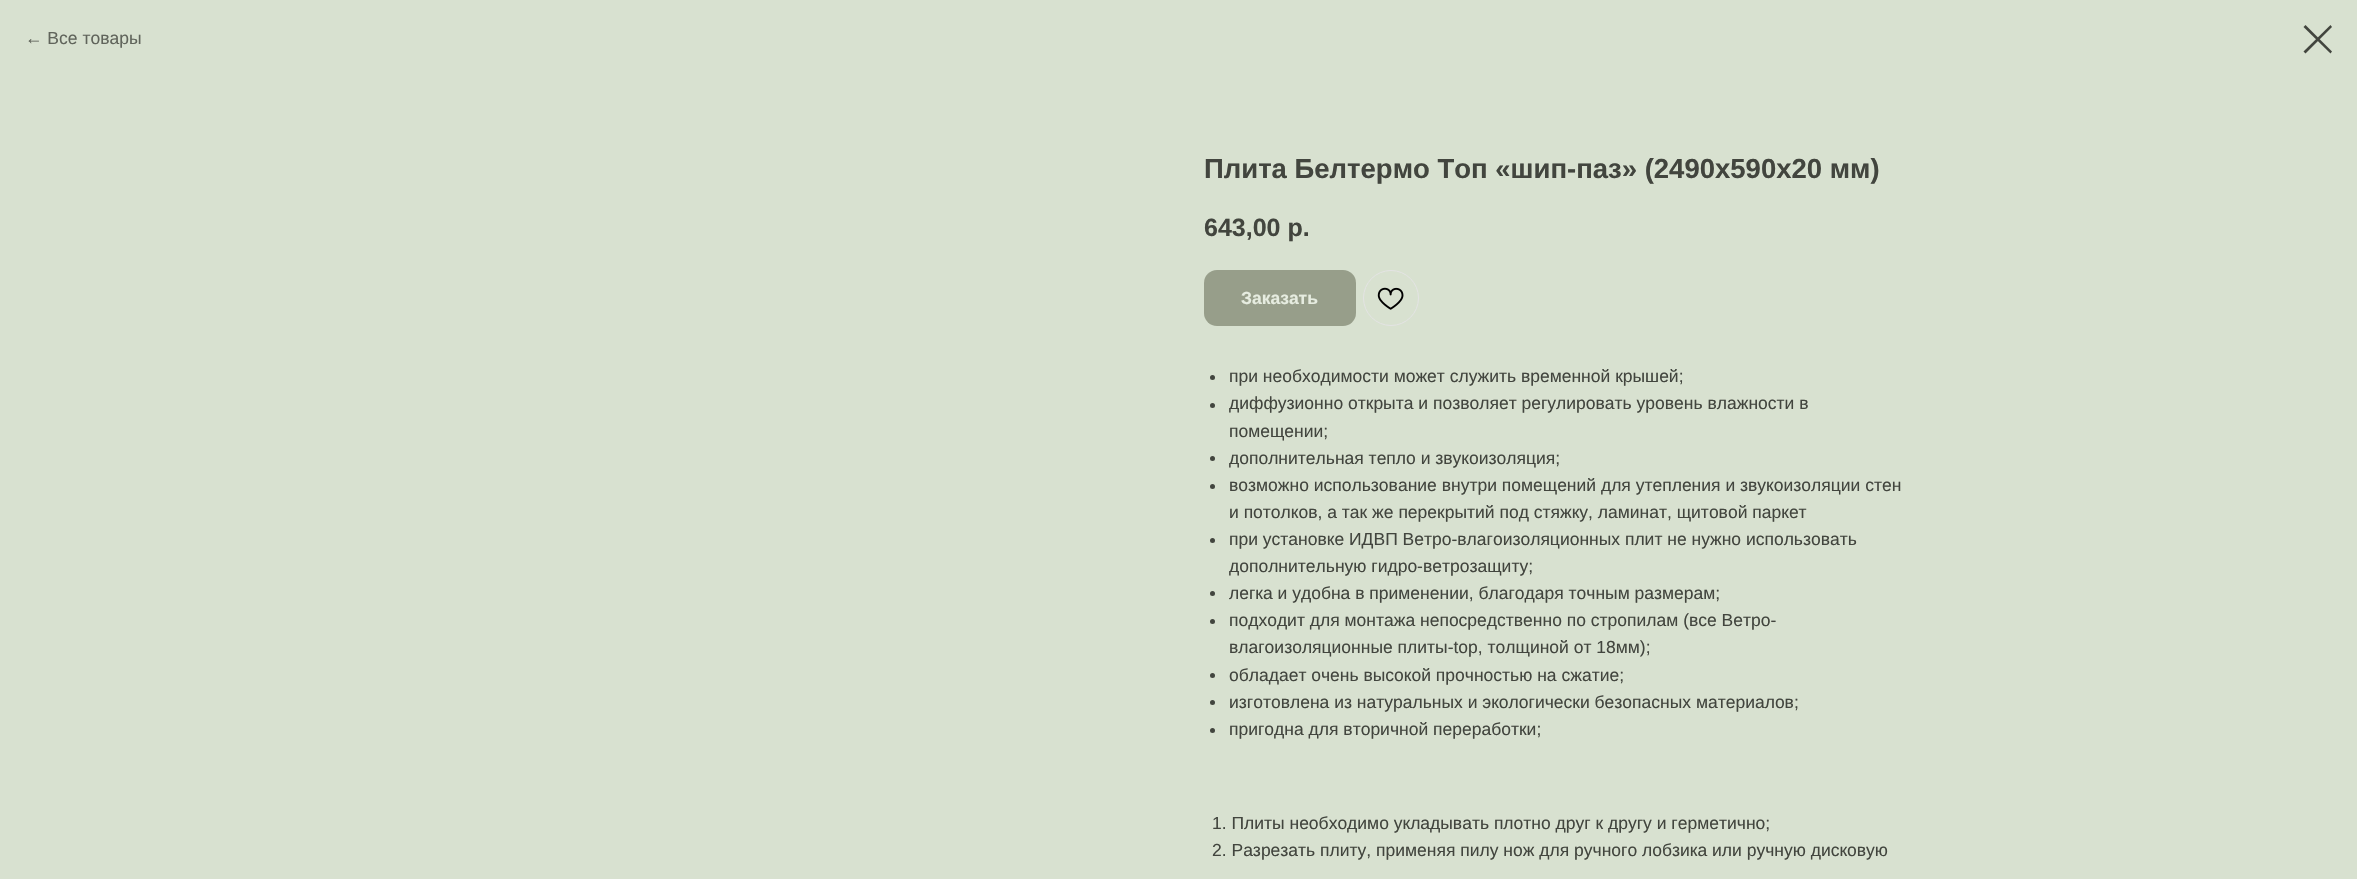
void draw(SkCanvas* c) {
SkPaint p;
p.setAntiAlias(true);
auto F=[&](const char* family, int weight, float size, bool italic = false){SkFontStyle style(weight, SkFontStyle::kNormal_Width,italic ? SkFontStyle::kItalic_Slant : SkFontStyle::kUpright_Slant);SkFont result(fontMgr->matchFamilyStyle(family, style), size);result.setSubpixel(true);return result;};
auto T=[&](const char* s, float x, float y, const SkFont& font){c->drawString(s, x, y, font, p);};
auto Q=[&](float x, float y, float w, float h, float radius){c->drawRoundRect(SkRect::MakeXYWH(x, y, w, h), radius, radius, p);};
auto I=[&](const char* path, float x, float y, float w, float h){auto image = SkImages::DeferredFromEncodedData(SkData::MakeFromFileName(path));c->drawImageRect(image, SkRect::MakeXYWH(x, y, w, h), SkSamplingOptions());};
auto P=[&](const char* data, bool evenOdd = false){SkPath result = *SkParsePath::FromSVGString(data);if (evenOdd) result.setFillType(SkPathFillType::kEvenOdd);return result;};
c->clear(0xffd8e1d0);
auto f1 = F("Liberation Sans",400,17.5);
p.setColor(0xff60645b);
T("← Все товары",25,44,f1);
p.setColor(0xff42453e);
c->drawPath(P("M2303.5 27l2-2l26.5 26.5l-1.5 2z",true),p);
c->drawPath(P("M2330.5 25l1.5 2l-26.5 26.5l-2-2z",true),p);
auto f2 = F("Liberation Sans",700,27.5);
T("Плита Белтермо Топ «шип-паз» (2490х590х20 мм)",1204,178,f2);
auto f3 = F("Liberation Sans",700,25);
T("643,00 р.",1204,236,f3);
p.setColor(0xff979e8a);
Q(1204,270,152,56,13);
auto f4 = F("Liberation Sans",700,17.5);
p.setColor(0xffe6ece0);
T("Заказать",1241,304,f4);
p.setStroke(true);
p.setStrokeWidth(1);
p.setColor(0xffe4e4e4);
c->drawCircle(1391,298,27.5,p);
I("1.png",1377,287,27,23);
p.setStroke(false);
p.setColor(0xff42453e);
c->drawCircle(1212.5,377.5,2.5,p);
T("при необходимости может служить временной крышей;",1229,382,f1);
c->drawCircle(1212.5,405.5,2.5,p);
T("диффузионно открыта и позволяет регулировать уровень влажности в",1229,409,f1);
T("помещении;",1229,437,f1);
c->drawCircle(1212.5,458.5,2.5,p);
T("дополнительная тепло и звукоизоляция;",1229,464,f1);
c->drawCircle(1212.5,486.5,2.5,p);
T("возможно использование внутри помещений для утепления и звукоизоляции стен",1229,491,f1);
T("и потолков, а так же перекрытий под стяжку, ламинат, щитовой паркет",1229,518,f1);
c->drawCircle(1212.5,540.5,2.5,p);
T("при установке ИДВП Ветро-влагоизоляционных плит не нужно использовать",1229,545,f1);
T("дополнительную гидро-ветрозащиту;",1229,572,f1);
c->drawCircle(1212.5,593.5,2.5,p);
T("легка и удобна в применении, благодаря точным размерам;",1229,599,f1);
c->drawCircle(1212.5,621.5,2.5,p);
T("подходит для монтажа непосредственно по стропилам (все Ветро-",1229,626,f1);
T("влагоизоляционные плиты-top, толщиной от 18мм);",1229,653,f1);
c->drawCircle(1212.5,675.5,2.5,p);
T("обладает очень высокой прочностью на сжатие;",1229,681,f1);
c->drawCircle(1212.5,702.5,2.5,p);
T("изготовлена из натуральных и экологически безопасных материалов;",1229,708,f1);
c->drawCircle(1212.5,730.5,2.5,p);
T("пригодна для вторичной переработки;",1229,735,f1);
T("1. Плиты необходимо укладывать плотно друг к другу и герметично;",1212,829,f1);
T("2. Разрезать плиту, применяя пилу нож для ручного лобзика или ручную дисковую",1212,856,f1);
}
